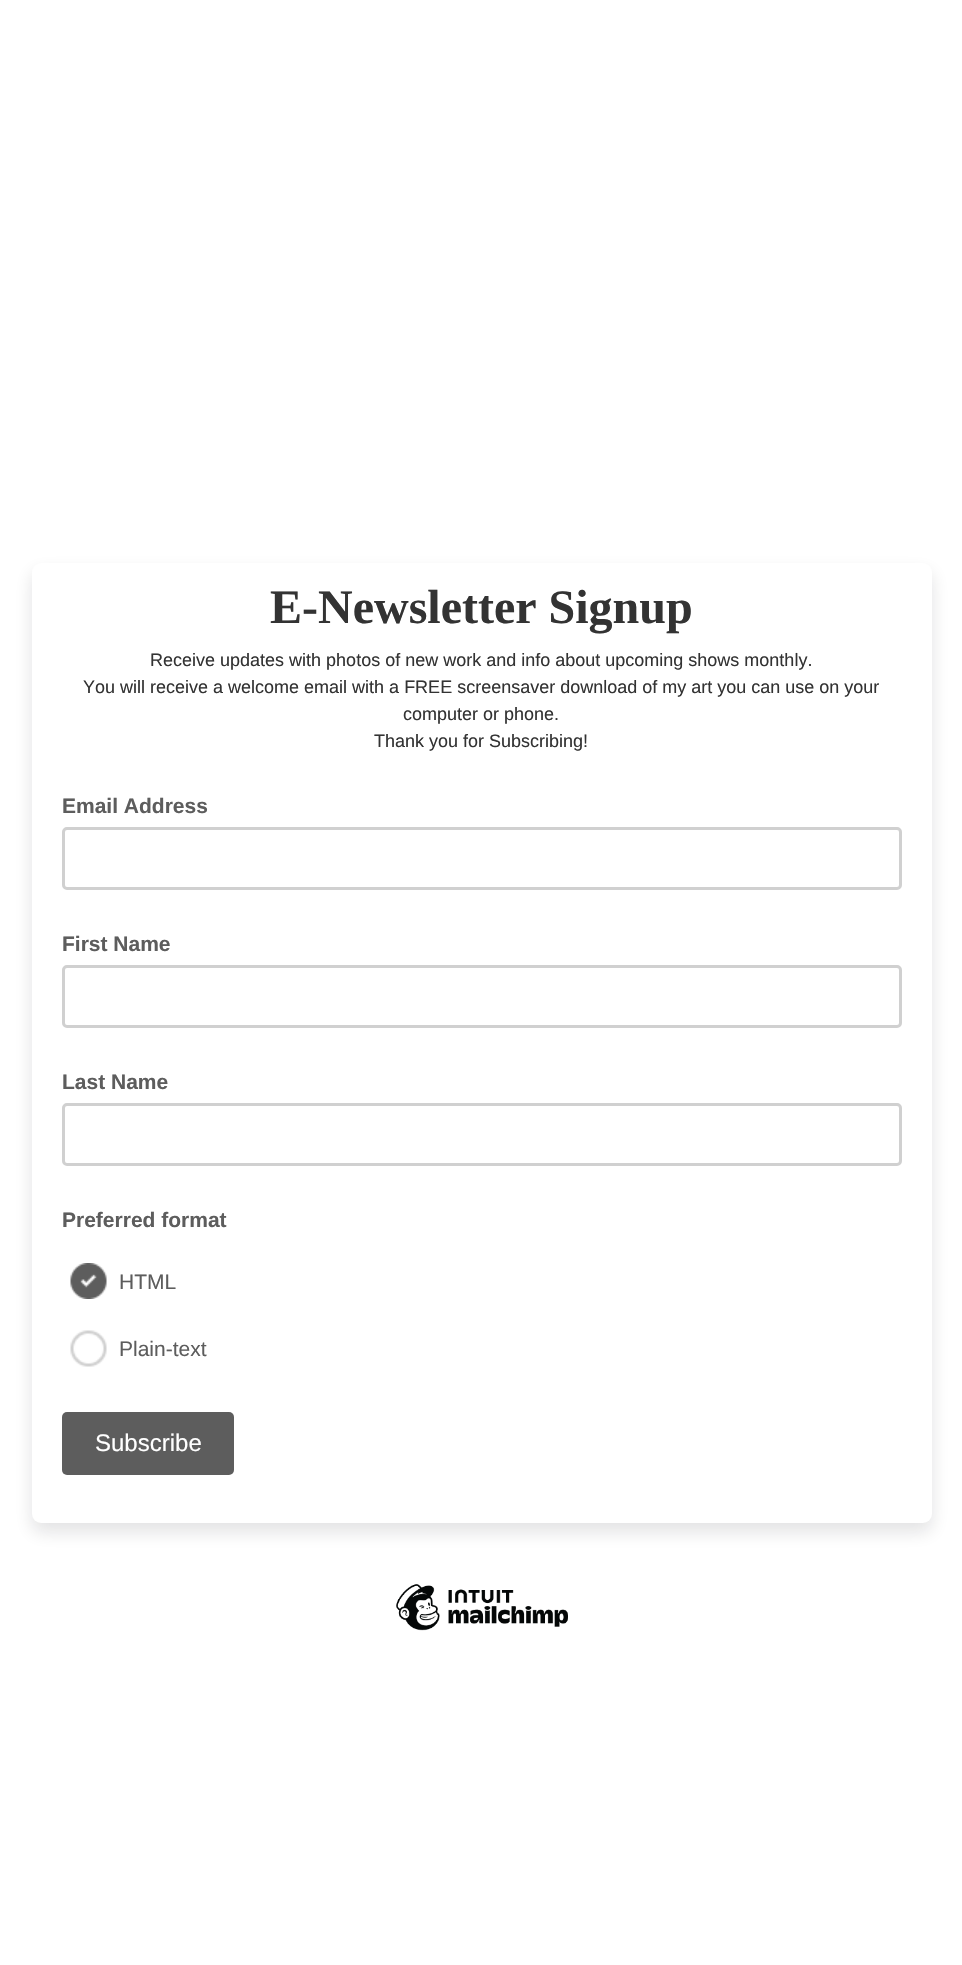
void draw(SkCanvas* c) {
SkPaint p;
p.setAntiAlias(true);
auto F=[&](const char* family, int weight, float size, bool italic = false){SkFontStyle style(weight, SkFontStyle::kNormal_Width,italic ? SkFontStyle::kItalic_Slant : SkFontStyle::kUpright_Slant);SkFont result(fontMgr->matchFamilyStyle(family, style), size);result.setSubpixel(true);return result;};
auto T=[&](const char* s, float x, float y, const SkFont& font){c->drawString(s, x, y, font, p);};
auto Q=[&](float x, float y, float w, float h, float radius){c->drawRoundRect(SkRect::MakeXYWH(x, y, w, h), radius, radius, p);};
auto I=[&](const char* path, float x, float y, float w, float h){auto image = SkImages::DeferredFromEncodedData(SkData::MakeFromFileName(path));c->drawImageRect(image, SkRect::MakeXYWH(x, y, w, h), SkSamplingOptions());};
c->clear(0xffffffff);
p.setColor(0x1f0d1216);
p.setMaskFilter(SkMaskFilter::MakeBlur(kNormal_SkBlurStyle, 9));
c->drawRoundRect(SkRect::MakeXYWH(32,572,900,960),9,9,p);
p.setMaskFilter(nullptr);
p.setColor(0xffffffff);
Q(32,563,900,960,9);
auto f1 = F("Liberation Serif",700,48);
p.setColor(0xff333333);
T("E-Newsletter Signup",270,623,f1);
auto f2 = F("Liberation Sans",400,18);
T("Receive updates with photos of new work and info about upcoming shows monthly.",150,666,f2);
T("You will receive a welcome email with a FREE screensaver download of my art you can use on your",83,693,f2);
T("computer or phone.",403,720,f2);
T("Thank you for Subscribing!",374,747,f2);
auto f3 = F("Liberation Sans",700,21);
p.setColor(0xff5d5d5d);
T("Email Address",62,813,f3);
p.setStroke(true);
p.setStrokeWidth(3);
p.setColor(0xffd0d0d0);
c->drawRoundRect(SkRect::MakeXYWH(63.5,828.5,837,60),3.5,3.5,p);
p.setStroke(false);
p.setColor(0xff5d5d5d);
T("First Name",62,951,f3);
p.setStroke(true);
p.setColor(0xffd0d0d0);
c->drawRoundRect(SkRect::MakeXYWH(63.5,966.5,837,60),3.5,3.5,p);
p.setStroke(false);
p.setColor(0xff5d5d5d);
T("Last Name",62,1089,f3);
p.setStroke(true);
p.setColor(0xffd0d0d0);
c->drawRoundRect(SkRect::MakeXYWH(63.5,1104.5,837,60),3.5,3.5,p);
p.setStroke(false);
p.setColor(0xff5d5d5d);
T("Preferred format",62,1227,f3);
I("1.png",70,1263,37,36);
auto f4 = F("Liberation Sans",400,21);
T("HTML",119,1289,f4);
I("2.png",70,1330,37,37);
T("Plain-text",119,1356,f4);
Q(62,1412,172,63,5);
auto f5 = F("Liberation Sans",400,24);
p.setColor(0xffffffff);
T("Subscribe",95,1451,f5);
I("3.png",396,1584,172,47);
}
